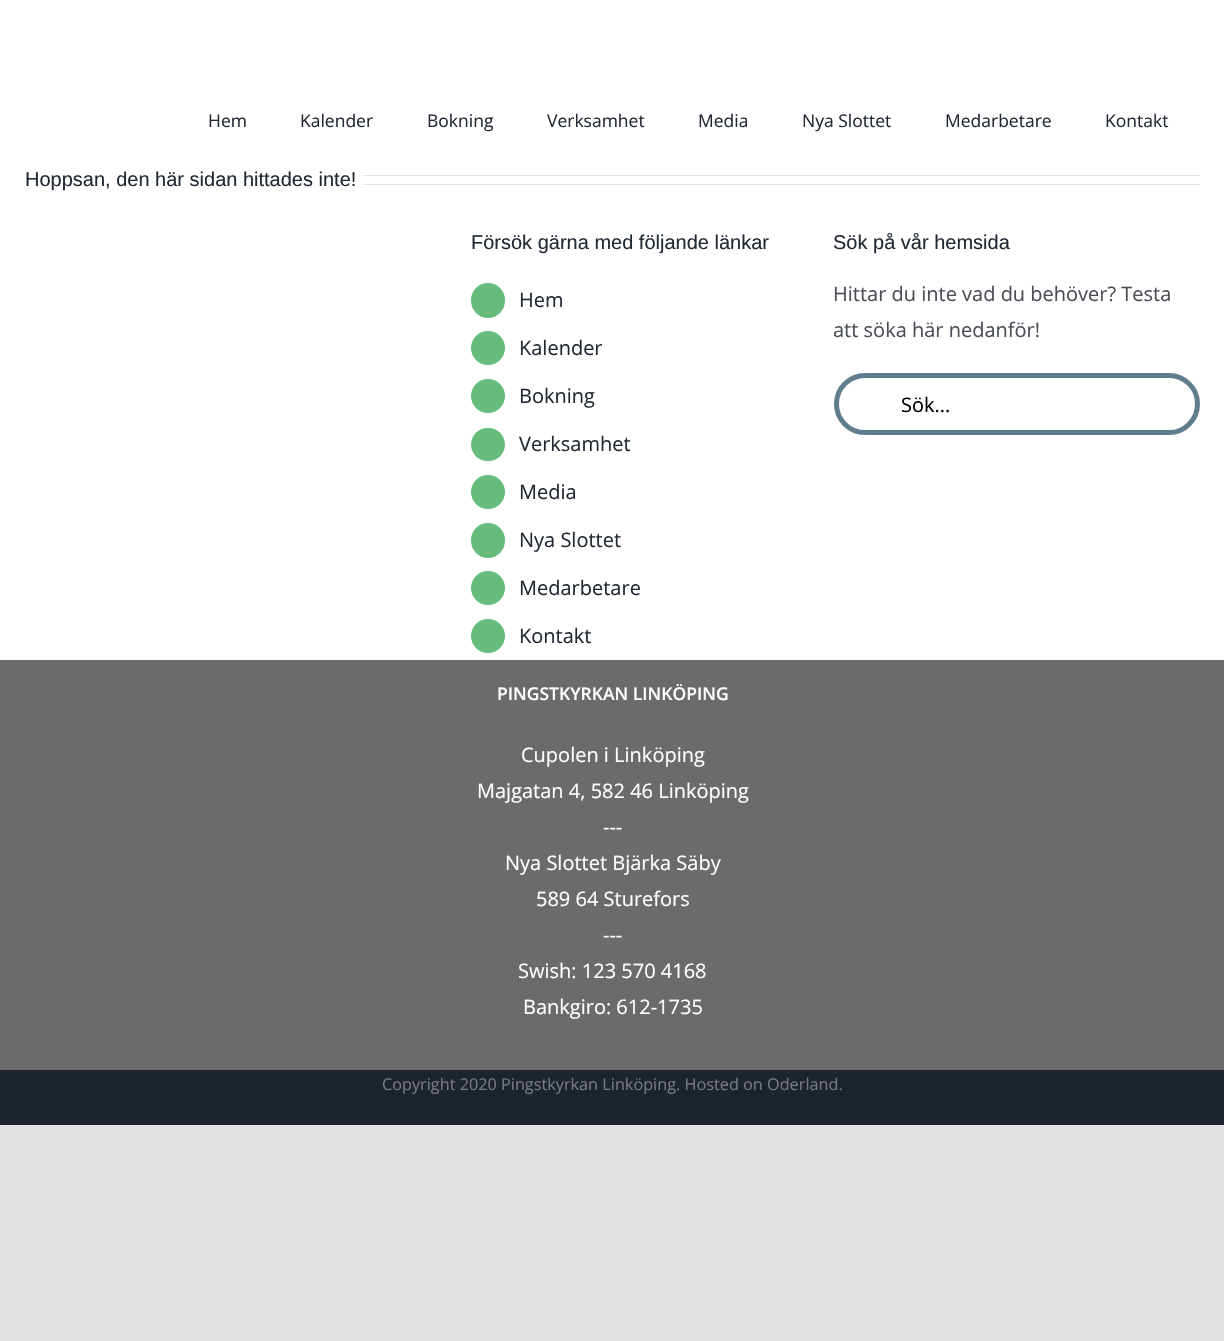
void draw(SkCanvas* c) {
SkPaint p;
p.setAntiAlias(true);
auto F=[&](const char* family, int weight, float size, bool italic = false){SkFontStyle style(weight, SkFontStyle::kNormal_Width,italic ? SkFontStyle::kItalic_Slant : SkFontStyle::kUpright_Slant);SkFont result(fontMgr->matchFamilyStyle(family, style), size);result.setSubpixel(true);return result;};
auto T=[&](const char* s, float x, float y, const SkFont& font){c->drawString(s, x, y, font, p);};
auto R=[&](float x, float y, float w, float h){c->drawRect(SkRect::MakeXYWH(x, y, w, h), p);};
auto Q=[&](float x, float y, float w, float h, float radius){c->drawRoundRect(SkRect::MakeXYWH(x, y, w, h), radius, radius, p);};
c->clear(0xffe2e2e2);
p.setColor(0xffffffff);
R(0,0,1224,660);
auto f1 = F("Open Sans",400,17.5);
p.setColor(0xff212934);
T("Hem",208,127,f1);
T("Kalender",300,127,f1);
T("Bokning",427,127,f1);
T("Verksamhet",547,127,f1);
T("Media",698,127,f1);
T("Nya Slottet",802,127,f1);
T("Medarbetare",945,127,f1);
T("Kontakt",1105,127,f1);
auto f2 = F("Liberation Sans",400,20);
T("Hoppsan, den här sidan hittades inte!",25,186,f2);
p.setColor(0xffe2e2e2);
R(363,175,837,1);
R(363,184,837,1);
p.setColor(0xff212934);
T("Försök gärna med följande länkar",471,249,f2);
p.setColor(0xff65bc7b);
Q(471,283,34,35,17);
auto f3 = F("Open Sans",400,20);
p.setColor(0xff212934);
T("Hem",519,307,f3);
p.setColor(0xff65bc7b);
c->drawCircle(488,348,17,p);
p.setColor(0xff212934);
T("Kalender",519,355,f3);
p.setColor(0xff65bc7b);
c->drawCircle(488,396,17,p);
p.setColor(0xff212934);
T("Bokning",519,403,f3);
p.setColor(0xff65bc7b);
Q(471,428,34,33,16.5);
p.setColor(0xff212934);
T("Verksamhet",519,451,f3);
p.setColor(0xff65bc7b);
c->drawCircle(488,492,17,p);
p.setColor(0xff212934);
T("Media",519,499,f3);
p.setColor(0xff65bc7b);
Q(471,523,34,35,17);
p.setColor(0xff212934);
T("Nya Slottet",519,547,f3);
p.setColor(0xff65bc7b);
c->drawCircle(488,588,17,p);
p.setColor(0xff212934);
T("Medarbetare",519,595,f3);
p.setColor(0xff65bc7b);
c->drawCircle(488,636,17,p);
p.setColor(0xff212934);
T("Kontakt",519,643,f3);
T("Sök på vår hemsida",833,249,f2);
p.setColor(0xff4a4e57);
T("Hittar du inte vad du behöver? Testa",833,301,f3);
T("att söka här nedanför!",833,337,f3);
p.setStroke(true);
p.setStrokeWidth(5);
p.setColor(0xff607d8b);
c->drawRoundRect(SkRect::MakeXYWH(836.5,375.5,361,57),28.5,28.5,p);
p.setStroke(false);
p.setColor(0xff000000);
T("Sök...",901,412,f3);
p.setColor(0xff6b6b6b);
R(0,660,1224,410);
auto f4 = F("Open Sans",600,17.5);
p.setColor(0xffffffff);
T("PINGSTKYRKAN LINKÖPING",497,700,f4);
T("Cupolen i Linköping",521,762,f3);
T("Majgatan 4, 582 46 Linköping",477,798,f3);
T("---",603,834,f3);
T("Nya Slottet Bjärka Säby",505,870,f3);
T("589 64 Sturefors",536,906,f3);
T("---",603,942,f3);
T("Swish: 123 570 4168",518,978,f3);
T("Bankgiro: 612-1735",523,1014,f3);
p.setColor(0xff1d242d);
R(0,1070,1224,55);
auto f5 = F("Open Sans",400,16.25);
p.setColor(0xff777c81);
T("Copyright 2020 Pingstkyrkan Linköping. Hosted on Oderland.",382,1090,f5);
}
